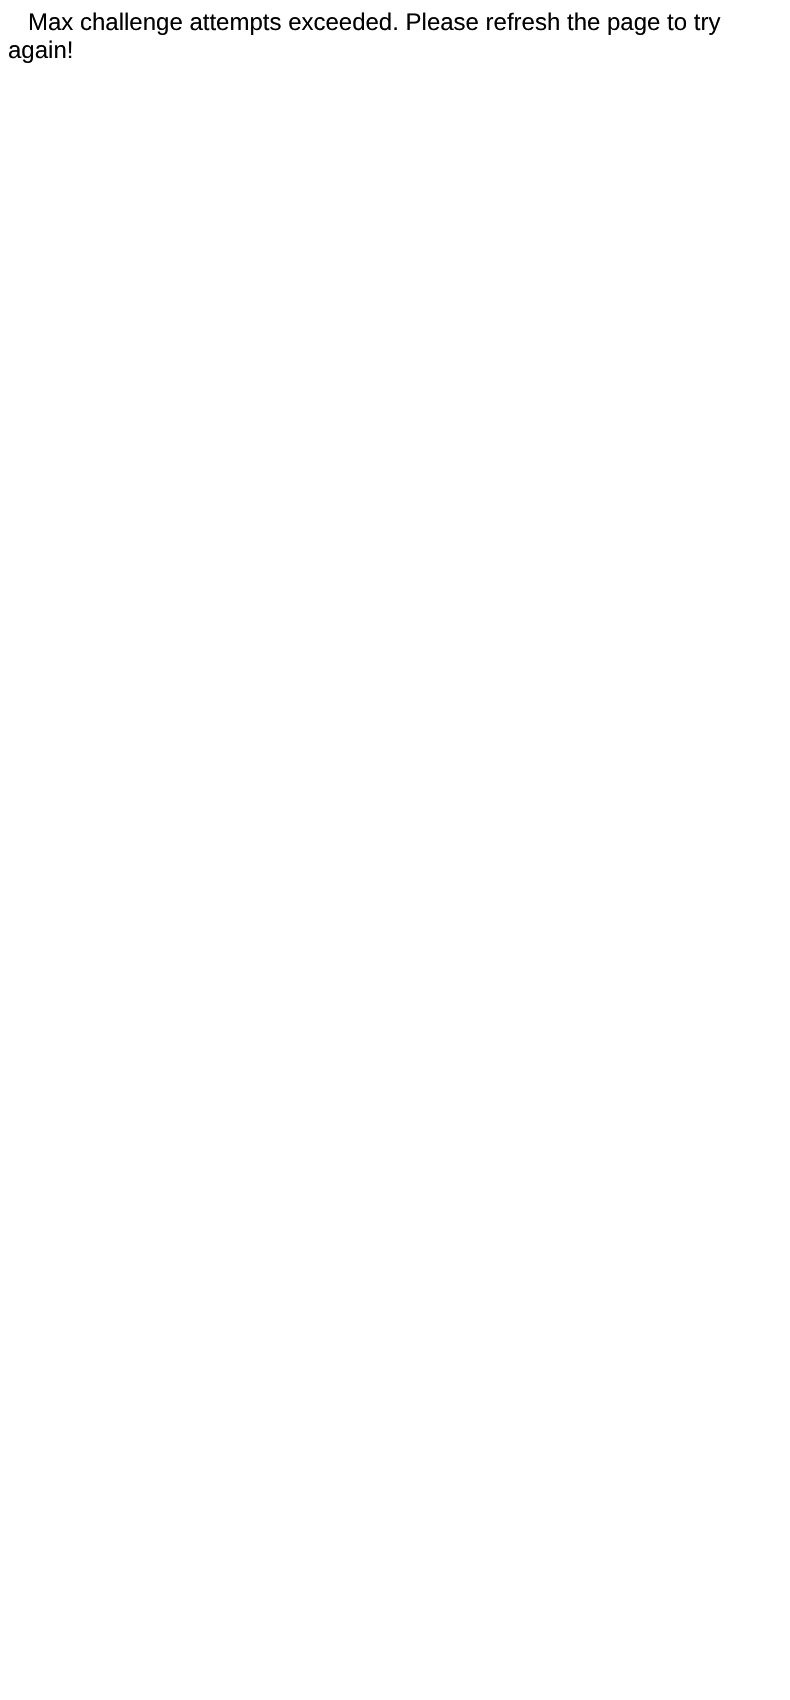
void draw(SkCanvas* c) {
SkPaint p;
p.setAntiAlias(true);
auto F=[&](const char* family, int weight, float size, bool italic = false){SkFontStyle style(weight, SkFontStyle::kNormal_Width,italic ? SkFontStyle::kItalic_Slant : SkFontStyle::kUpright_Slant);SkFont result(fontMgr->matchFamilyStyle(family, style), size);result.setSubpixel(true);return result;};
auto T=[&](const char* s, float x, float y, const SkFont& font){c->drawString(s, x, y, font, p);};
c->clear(0xffffffff);
auto f1 = F("Liberation Sans",400,24);
p.setColor(0xff000000);
T("Max challenge attempts exceeded. Please refresh the page to try",28,30,f1);
T("again!",8,58,f1);
}
